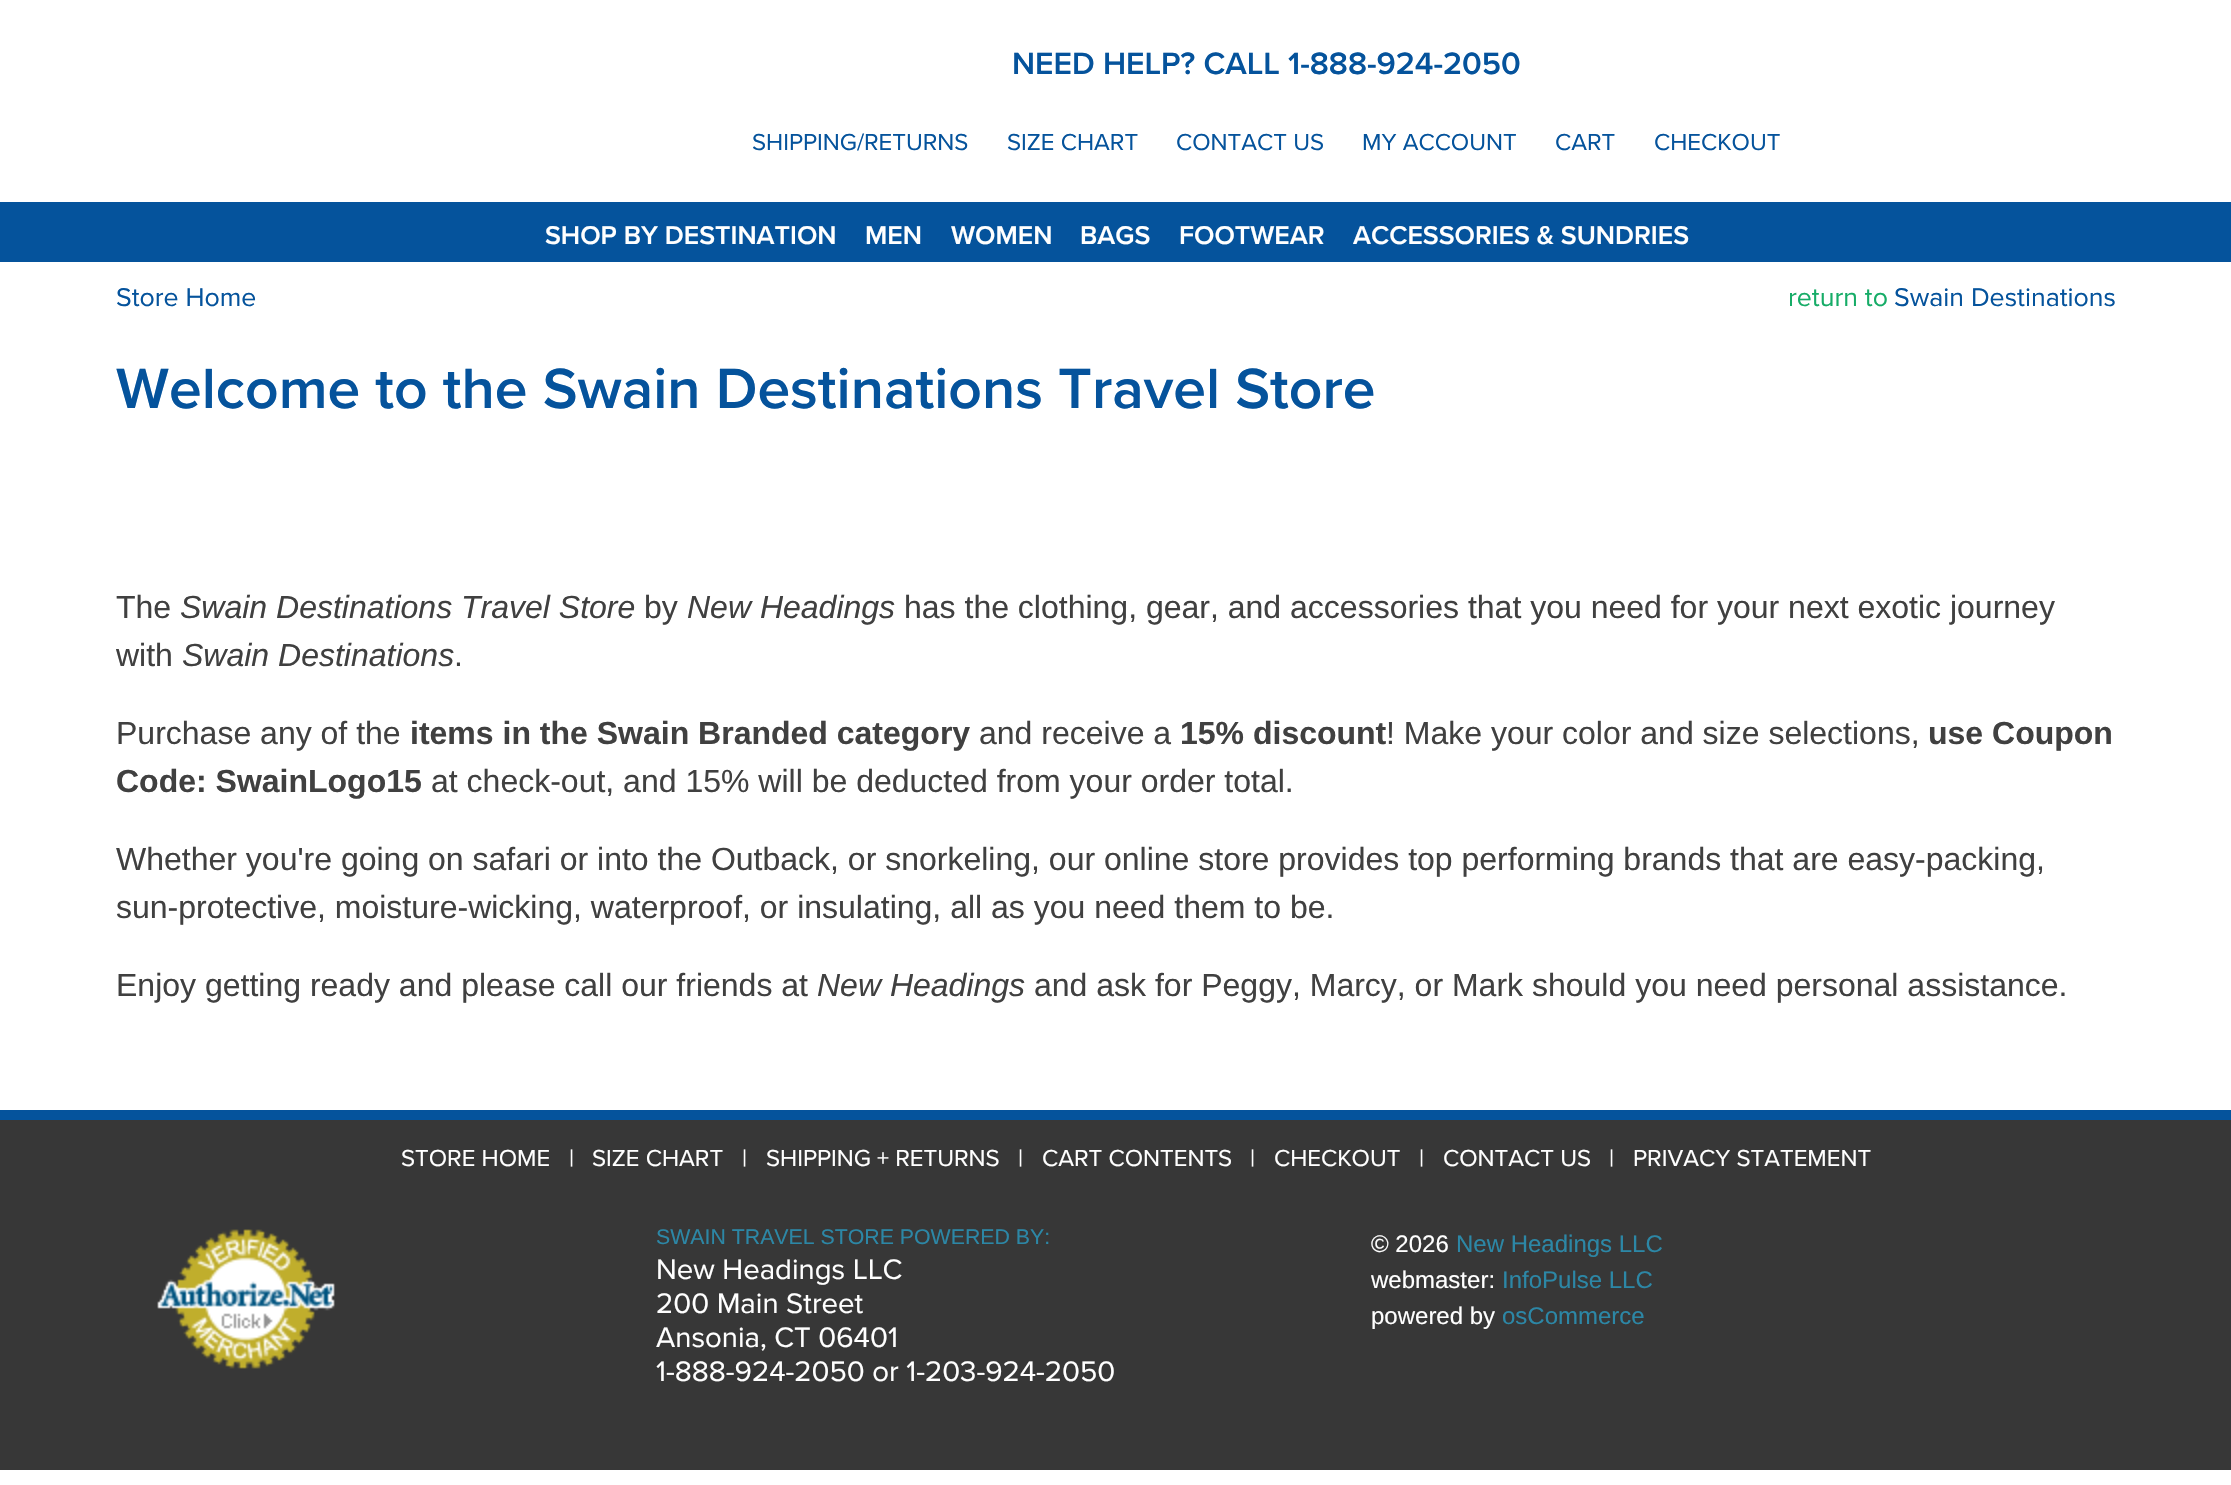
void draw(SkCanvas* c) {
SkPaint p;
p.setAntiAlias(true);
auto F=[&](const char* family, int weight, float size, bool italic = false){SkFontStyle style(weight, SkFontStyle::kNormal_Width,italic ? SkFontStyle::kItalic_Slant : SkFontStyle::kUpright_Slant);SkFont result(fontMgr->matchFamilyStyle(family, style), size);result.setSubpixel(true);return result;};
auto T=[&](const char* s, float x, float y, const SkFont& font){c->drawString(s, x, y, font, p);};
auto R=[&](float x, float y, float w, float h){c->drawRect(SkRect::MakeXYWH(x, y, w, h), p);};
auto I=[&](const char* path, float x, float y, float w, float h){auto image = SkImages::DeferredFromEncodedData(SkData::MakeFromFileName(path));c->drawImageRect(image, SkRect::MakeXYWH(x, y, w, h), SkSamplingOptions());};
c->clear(0xffffffff);
auto f1 = F("Proxima Nova",600,32);
p.setColor(0xff05539c);
T("NEED HELP? CALL 1-888-924-2050",1012,74,f1);
auto f2 = F("Proxima Nova",400,24);
T("SHIPPING/RETURNS",752,150,f2);
T("SIZE CHART",1007,150,f2);
T("CONTACT US",1176,150,f2);
T("MY ACCOUNT",1362,150,f2);
T("CART",1555,150,f2);
T("CHECKOUT",1654,150,f2);
R(0,202,2231,60);
auto f3 = F("Proxima Nova",600,26.7);
p.setColor(0xffffffff);
T("SHOP BY DESTINATION",545,244,f3);
T("MEN",865,244,f3);
T("WOMEN",951,244,f3);
T("BAGS",1080,244,f3);
T("FOOTWEAR",1179,244,f3);
T("ACCESSORIES & SUNDRIES",1353,244,f3);
auto f4 = F("Proxima Nova",400,26.7);
p.setColor(0xff05539c);
T("Store Home",116,306,f4);
p.setColor(0xff16ac67);
T("return to",1788,306,f4);
p.setColor(0xff05539c);
T("Swain Destinations",1894,306,f4);
auto f5 = F("Proxima Nova",600,58.7);
T("Welcome to the Swain Destinations Travel Store",116,408,f5);
auto f6 = F("Liberation Sans",400,32);
p.setColor(0xff404040);
T("The",116,618,f6);
auto f7 = F("Liberation Sans",400,32,true);
T("Swain Destinations Travel Store",180,618,f7);
T("by",644,618,f6);
T("New Headings",687,618,f7);
T("has the clothing, gear, and accessories that you need for your next exotic journey",904,618,f6);
T("with",116,666,f6);
T("Swain Destinations",182,666,f7);
T(".",454,666,f6);
T("Purchase any of the",116,744,f6);
auto f8 = F("Liberation Sans",700,32);
T("items in the Swain Branded category",410,744,f8);
T("and receive a",979,744,f6);
T("15% discount",1180,744,f8);
T("! Make your color and size selections,",1386,744,f6);
T("use Coupon",1928,744,f8);
T("Code: SwainLogo15",116,792,f8);
T("at check-out, and 15% will be deducted from your order total.",431,792,f6);
T("Whether you're going on safari or into the Outback, or snorkeling, our online store provides top performing brands that are easy-packing,",116,870,f6);
T("sun-protective, moisture-wicking, waterproof, or insulating, all as you need them to be.",116,918,f6);
T("Enjoy getting ready and please call our friends at",116,996,f6);
T("New Headings",817,996,f7);
T("and ask for Peggy, Marcy, or Mark should you need personal assistance.",1034,996,f6);
p.setColor(0xff373737);
R(0,1120,2231,350);
p.setColor(0xff05539c);
R(0,1110,2231,10);
p.setColor(0xffffffff);
T("STORE HOME",401,1166,f2);
T("|",569,1166,f2);
T("SIZE CHART",592,1166,f2);
T("|",742,1166,f2);
T("SHIPPING + RETURNS",766,1166,f2);
T("|",1018,1166,f2);
T("CART CONTENTS",1042,1166,f2);
T("|",1250,1166,f2);
T("CHECKOUT",1274,1166,f2);
T("|",1419,1166,f2);
T("CONTACT US",1443,1166,f2);
T("|",1609,1166,f2);
T("PRIVACY STATEMENT",1633,1166,f2);
I("1.png",157,1229,178,140);
auto f9 = F("Liberation Sans",400,21.3);
p.setColor(0xff2c87a6);
T("SWAIN TRAVEL STORE POWERED BY:",656,1244,f9);
auto f10 = F("Proxima Nova",400,29.3);
p.setColor(0xffffffff);
T("New Headings LLC",656,1279,f10);
T("200 Main Street",656,1313,f10);
T("Ansonia, CT 06401",656,1347,f10);
T("1-888-924-2050 or 1-203-924-2050",656,1381,f10);
auto f11 = F("Liberation Sans",400,24);
T("© 2026",1371,1252,f11);
p.setColor(0xff2c87a6);
T("New Headings LLC",1456,1252,f11);
p.setColor(0xffffffff);
T("webmaster:",1371,1288,f11);
p.setColor(0xff2c87a6);
T("InfoPulse LLC",1502,1288,f11);
p.setColor(0xffffffff);
T("powered by",1371,1324,f11);
p.setColor(0xff2c87a6);
T("osCommerce",1502,1324,f11);
}
